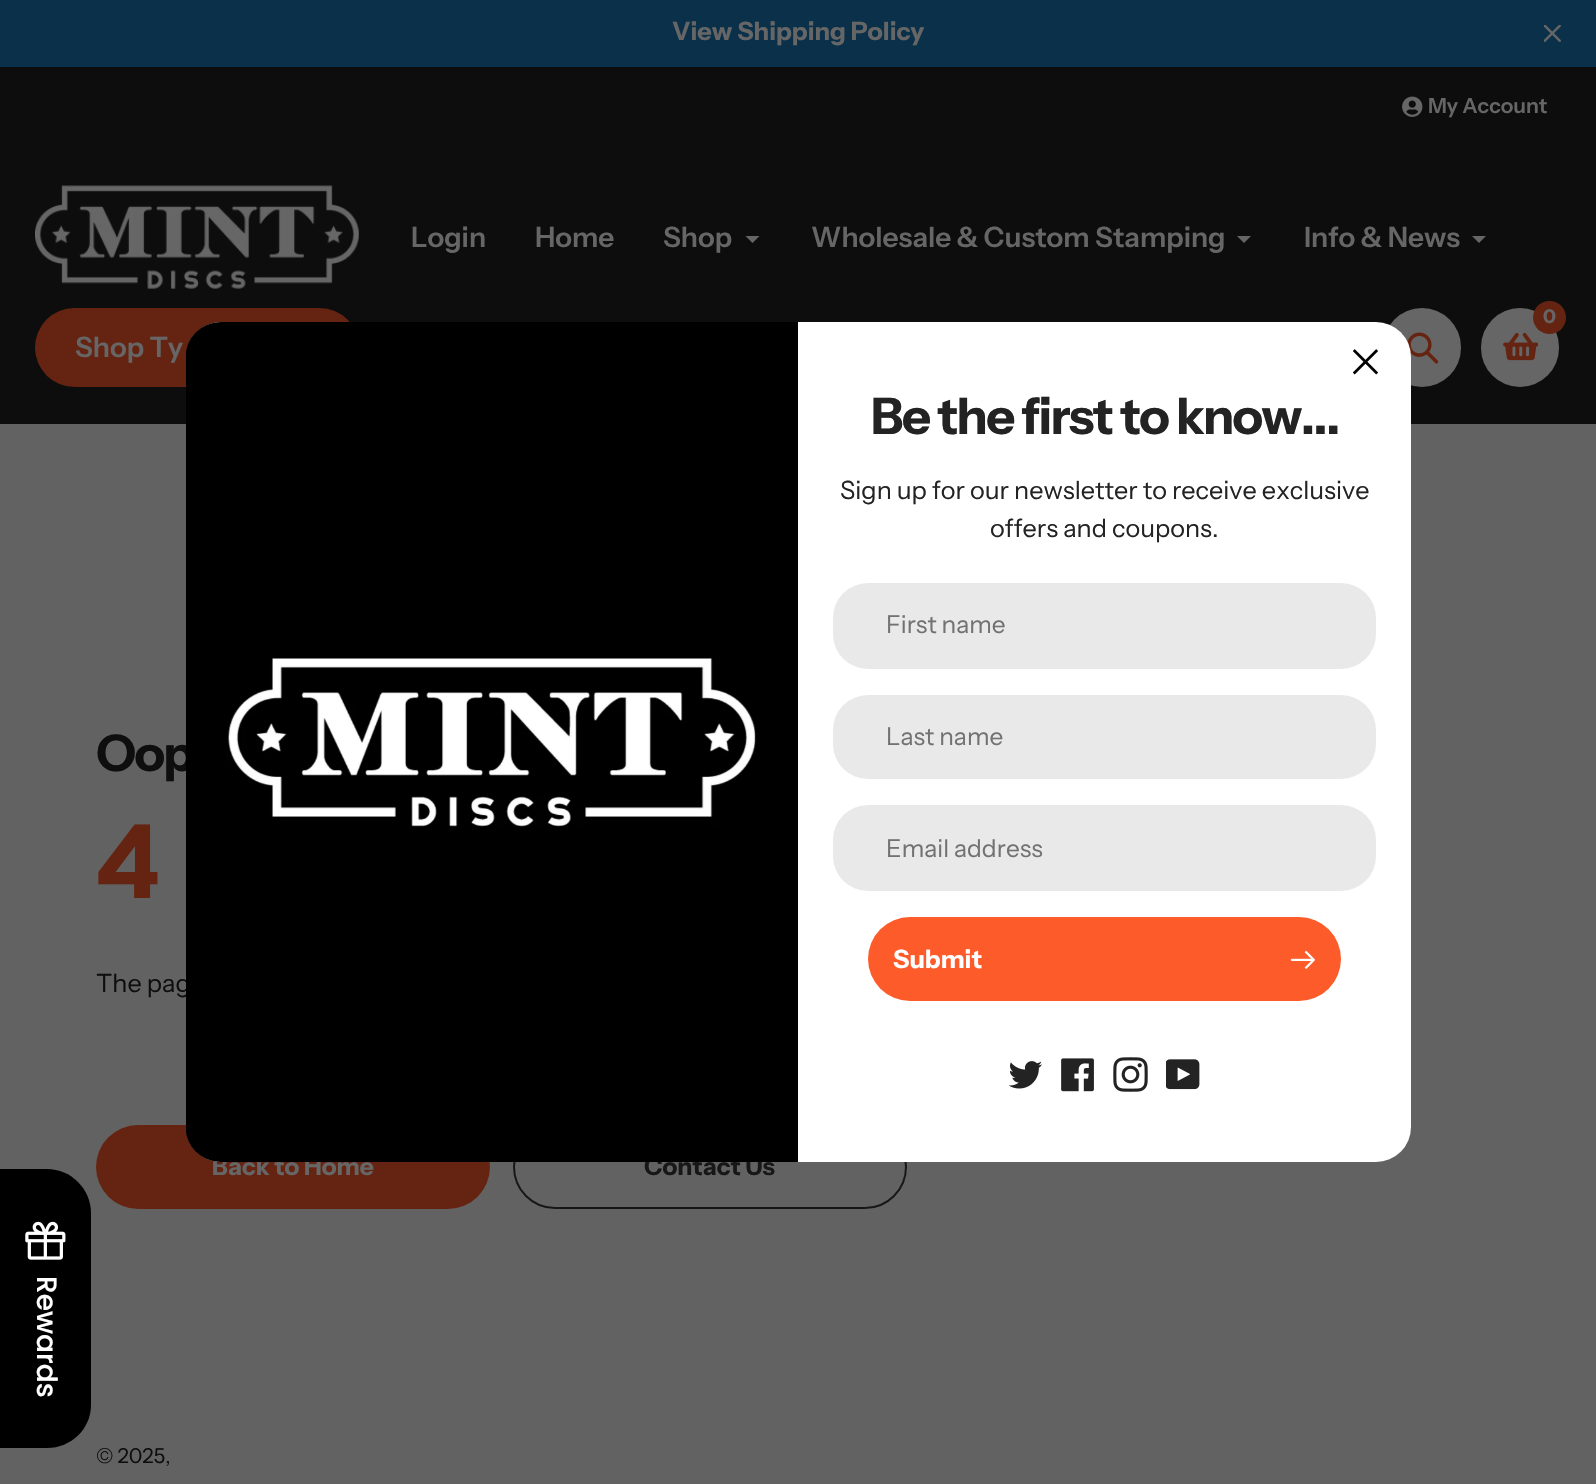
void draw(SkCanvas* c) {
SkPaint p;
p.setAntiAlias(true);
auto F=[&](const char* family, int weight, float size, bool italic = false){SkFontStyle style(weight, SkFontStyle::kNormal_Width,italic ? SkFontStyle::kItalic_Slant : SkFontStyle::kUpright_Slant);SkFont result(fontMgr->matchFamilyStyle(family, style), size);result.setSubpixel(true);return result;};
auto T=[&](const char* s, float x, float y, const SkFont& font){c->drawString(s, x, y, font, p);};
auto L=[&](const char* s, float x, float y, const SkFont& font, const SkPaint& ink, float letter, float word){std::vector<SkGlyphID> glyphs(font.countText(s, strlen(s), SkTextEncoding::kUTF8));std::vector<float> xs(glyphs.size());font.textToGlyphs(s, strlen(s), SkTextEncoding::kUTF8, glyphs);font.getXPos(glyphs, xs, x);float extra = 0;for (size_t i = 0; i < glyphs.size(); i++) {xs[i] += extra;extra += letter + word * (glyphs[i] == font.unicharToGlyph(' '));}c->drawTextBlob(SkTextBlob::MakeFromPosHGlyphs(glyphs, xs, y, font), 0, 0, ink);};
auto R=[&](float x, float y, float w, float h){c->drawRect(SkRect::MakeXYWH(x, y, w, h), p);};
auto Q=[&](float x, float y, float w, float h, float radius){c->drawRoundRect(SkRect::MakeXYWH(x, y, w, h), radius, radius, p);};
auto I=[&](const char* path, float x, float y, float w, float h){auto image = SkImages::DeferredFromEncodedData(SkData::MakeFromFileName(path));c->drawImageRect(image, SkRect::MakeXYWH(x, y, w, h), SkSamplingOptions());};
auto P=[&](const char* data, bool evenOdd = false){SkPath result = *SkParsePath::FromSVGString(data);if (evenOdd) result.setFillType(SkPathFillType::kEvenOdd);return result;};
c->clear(0xff626262);
p.setColor(0xff0a304a);
R(0,0,1596,67);
auto f1 = F("Instrument Sans",700,25.2);
p.setColor(0xff666666);
T("View Shipping Policy",672,40,f1);
I("1.png",1544,25,17,17);
p.setColor(0xff0d0d0d);
R(0,67,1596,357);
I("2.png",1402,96,21,21);
auto f2 = F("Instrument Sans",600,21);
p.setColor(0xff666666);
T("My Account",1428,113,f2);
I("3.png",35,185,324,104);
auto f3 = F("Instrument Sans",600,28);
T("Login",411,247,f3);
T("Home",535,247,f3);
T("Shop",663,247,f3);
c->drawPath(P("M759.5 236l-7 7l-7-7"),p);
T("Wholesale & Custom Stamping",811,247,f3);
c->drawPath(P("M1251 236l-7 7l-7-7"),p);
T("Info & News",1304,247,f3);
c->drawPath(P("M1486 236l-7 7l-7-7"),p);
Q(1383,308,78,79,39);
I("4.png",1407,332,32,32);
Q(1481,308,78,79,39);
I("5.png",1503,332,35,29);
p.setColor(0xff652411);
c->drawCircle(1549.5,317.5,16.5,p);
auto f4 = F("Instrument Sans",700,19);
p.setColor(0xff666666);
T("0",1543,323,f4);
p.setColor(0xff652411);
Q(35,308,324,79,39.5);
p.setColor(0xff666666);
T("Shop Ty",75,357,f3);
p.setColor(0xff000000);
c->drawPath(P("M91 1213v192c0 24-20 43-44 43h-47v-279h47c24 0 44 20 44 44z"),p);
I("6.png",25,1221,41,39);
auto f5 = F("Poppins",500,28);
p.setColor(0xffffffff);
c->save();
c->rotate(90,37,1276);
T("Rewards",37,1276,f5);
c->restore();
auto f6 = F("Instrument Sans",700,50.5);
p.setColor(0xff0e0e0e);
L("Oop",96,771,f6,p,-1.75,0);
auto f7 = F("Instrument Sans",700,102);
p.setColor(0xff652411);
L("4",96,898,f7,p,-4,0);
auto f8 = F("Instrument Sans",400,25.2);
p.setColor(0xff0e0e0e);
T("The pag",96,992,f8);
p.setColor(0xff652411);
Q(96,1125,394,84,42);
auto f9 = F("Instrument Sans",700,24.5);
p.setColor(0xff666666);
T("Back to Home",212,1175,f9);
p.setStroke(true);
p.setStrokeWidth(2);
p.setColor(0xff171717);
c->drawRoundRect(SkRect::MakeXYWH(514,1126,392,82),41,41,p);
p.setStroke(false);
T("Contact Us",644,1175,f9);
auto f10 = F("Instrument Sans",400,20.5);
p.setColor(0xff0e0e0e);
T("© 2025,",96,1463,f10);
p.setColor(0xffffffff);
Q(186,322,1225,840,35);
I("7.png",186,322,612,840);
I("8.png",1353,349,26,26);
p.setColor(0xff232323);
L("Be the first to know...",871,434,f6,p,-1.75,0);
T("Sign up for our newsletter to receive exclusive",840,499,f8);
T("offers and coupons.",990,537,f8);
p.setColor(0xffe9e9e9);
Q(833,583,543,86,35);
auto f11 = F("Instrument Sans",400,24.5);
p.setColor(0xff727272);
T("First name",886,633,f11);
p.setColor(0xffe9e9e9);
Q(833,695,543,84,35);
p.setColor(0xff727272);
T("Last name",886,745,f11);
p.setColor(0xffe9e9e9);
Q(833,805,543,86,35);
p.setColor(0xff727272);
T("Email address",886,857,f11);
p.setColor(0xfffd5b2a);
Q(868,917,473,84,42);
p.setColor(0xffffffff);
T("Submit",893,968,f1);
I("9.png",1290,950,25,19);
I("10.png",1008,1061,34,28);
I("11.png",1061,1058,33,34);
I("12.png",1113,1057,35,35);
I("13.png",1166,1059,34,31);
}
